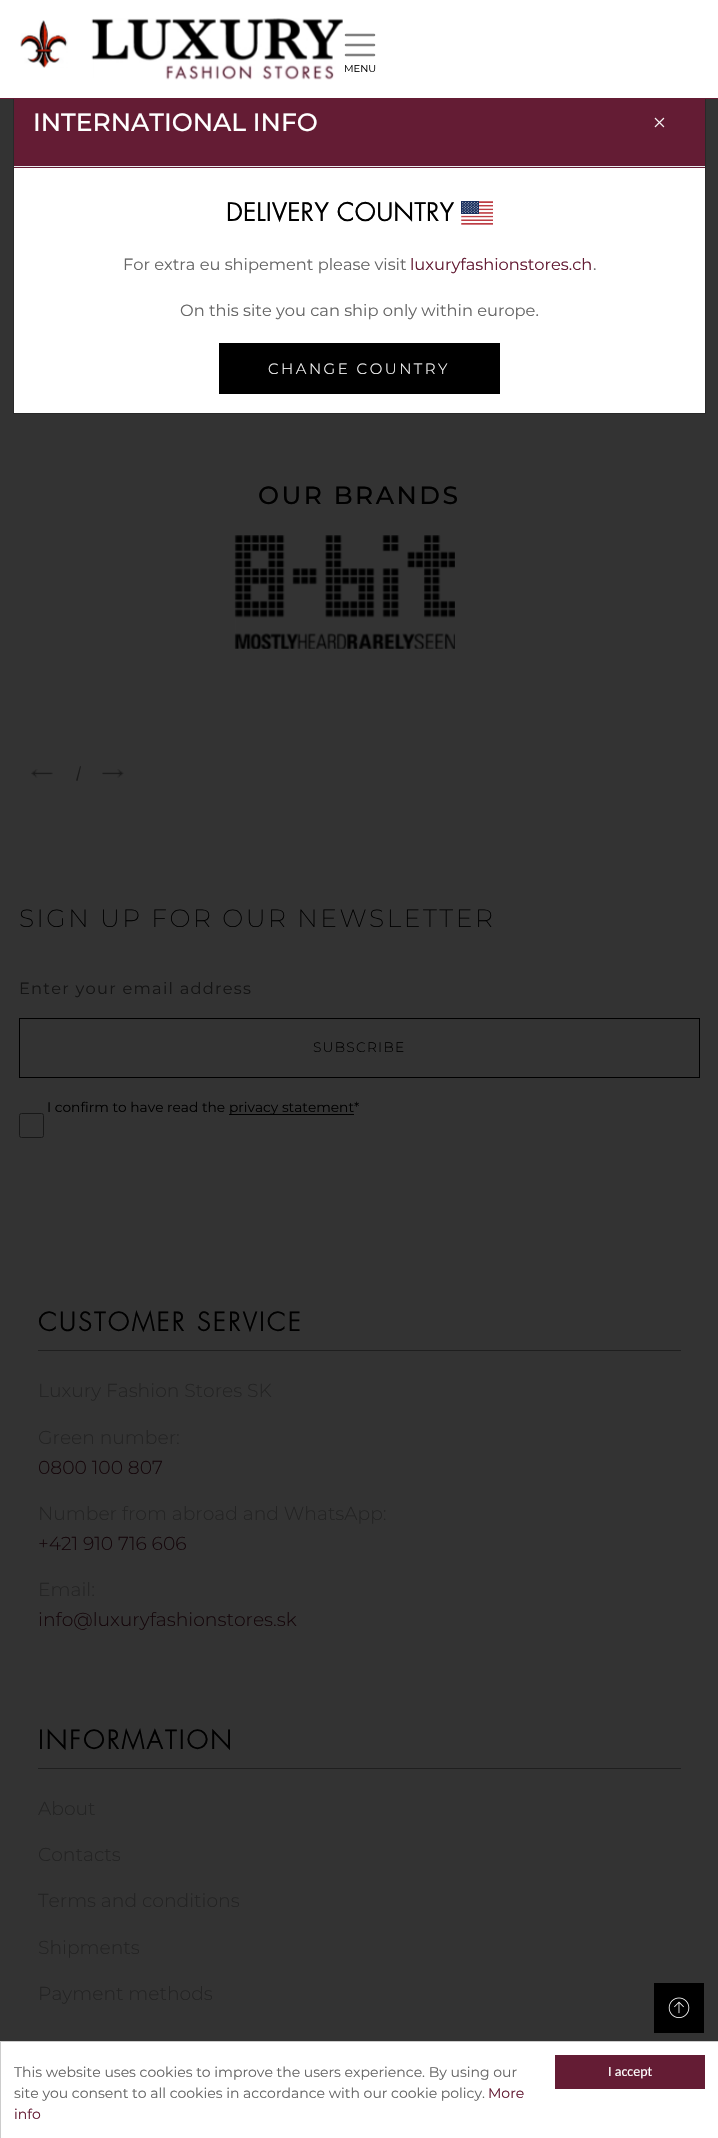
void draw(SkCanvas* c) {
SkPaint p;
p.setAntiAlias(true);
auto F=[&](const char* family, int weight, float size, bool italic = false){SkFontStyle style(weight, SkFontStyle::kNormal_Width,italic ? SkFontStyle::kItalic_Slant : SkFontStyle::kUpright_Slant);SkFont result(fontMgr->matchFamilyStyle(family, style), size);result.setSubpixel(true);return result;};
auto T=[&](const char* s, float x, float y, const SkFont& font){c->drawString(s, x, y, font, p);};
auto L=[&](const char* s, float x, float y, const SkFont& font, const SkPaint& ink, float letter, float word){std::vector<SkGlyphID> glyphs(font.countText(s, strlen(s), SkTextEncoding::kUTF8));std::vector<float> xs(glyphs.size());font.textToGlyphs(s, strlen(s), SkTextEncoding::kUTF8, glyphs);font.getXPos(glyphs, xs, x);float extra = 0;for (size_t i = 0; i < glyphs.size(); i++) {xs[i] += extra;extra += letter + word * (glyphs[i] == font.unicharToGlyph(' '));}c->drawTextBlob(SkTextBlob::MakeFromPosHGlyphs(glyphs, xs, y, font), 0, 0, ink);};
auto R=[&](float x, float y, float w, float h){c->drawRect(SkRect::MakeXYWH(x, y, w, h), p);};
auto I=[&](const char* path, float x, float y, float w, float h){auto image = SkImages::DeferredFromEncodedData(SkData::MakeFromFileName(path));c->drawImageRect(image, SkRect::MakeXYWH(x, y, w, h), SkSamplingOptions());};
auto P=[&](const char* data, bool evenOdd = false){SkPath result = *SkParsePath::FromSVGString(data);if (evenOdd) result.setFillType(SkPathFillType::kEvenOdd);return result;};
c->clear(0xff333333);
p.setColor(0xffffffff);
R(14,168,691,245);
p.setStroke(true);
p.setStrokeWidth(1);
p.setColor(0x33000000);
c->drawRect(SkRect::MakeXYWH(13.5,88.5,692,325),p);
p.setStroke(false);
p.setColor(0xffffffff);
R(0,0,718,98);
p.setColor(0xff641c34);
R(0,98,718,1);
I("1.png",20,20,48,48);
I("2.png",91,18,252,62);
p.setStroke(true);
p.setStrokeWidth(2.5);
p.setStrokeCap(SkPaint::kRound_Cap);
p.setColor(0xff808080);
c->drawPath(P("M346 35h28m-28 10h28m-28 10h28"),p);
auto f1 = F("Montserrat",400,10);
p.setStroke(false);
p.setColor(0xff000000);
T("MENU",344,72,f1);
auto f2 = F("Montserrat",500,25);
L("OUR BRANDS",258,504,f2,p,2.5,0);
I("3.png",234,535,221,114);
I("4.png",31,769,22,9);
p.setColor(0xff1a1a1a);
c->drawPath(P("M80 766l1 .5l-3.5 14.5l-1.5-.5z"),p);
I("5.png",102,769,22,9);
auto f3 = F("Montserrat",200,25);
p.setColor(0xff000000);
L("SIGN UP FOR OUR NEWSLETTER",19,927,f3,p,2.5,0);
auto f4 = F("Montserrat",400,16.25);
p.setColor(0xff141414);
L("Enter your email address",19,994,f4,p,1.25,0);
p.setStroke(true);
p.setStrokeWidth(1);
p.setStrokeCap(SkPaint::kButt_Cap);
p.setColor(0xff000000);
c->drawRect(SkRect::MakeXYWH(19.5,1018.5,680,59),p);
auto f5 = F("Montserrat",300,13.75);
p.setStroke(false);
L("SUBSCRIBE",313,1052,f5,p,1.25,0);
auto f6 = F("Montserrat",400,13.75);
T("I confirm to have read the",47,1112,f6);
R(229,1114,125,1);
T("privacy statement*",229,1112,f6);
p.setStroke(true);
p.setColor(0xff181818);
c->drawRoundRect(SkRect::MakeXYWH(19.5,1113.5,24,24),2,2,p);
auto f7 = F("Futura",700,25);
p.setStroke(false);
p.setColor(0xff000000);
L("CUSTOMER SERVICE",38,1331,f7,p,2.5,0);
p.setColor(0xff1f1f1f);
R(38,1350,643,1);
auto f8 = F("Montserrat",300,18.75);
p.setColor(0xff222222);
T("Luxury Fashion Stores SK",38,1397,f8);
T("Green number:",38,1444,f8);
p.setColor(0xff14060a);
T("0800 100 807",38,1474,f8);
p.setColor(0xff222222);
T("Number from abroad and WhatsApp:",38,1520,f8);
p.setColor(0xff14060a);
T("+421 910 716 606",38,1550,f8);
p.setColor(0xff222222);
T("Email:",38,1596,f8);
p.setColor(0xff14060a);
T("info@luxuryfashionstores.sk",38,1626,f8);
p.setColor(0xff000000);
L("INFORMATION",38,1749,f7,p,2.5,0);
p.setColor(0xff1f1f1f);
R(38,1768,643,1);
p.setColor(0xff222222);
T("About",38,1815,f8);
T("Contacts",38,1861,f8);
T("Terms and conditions",38,1907,f8);
T("Shipments",38,1954,f8);
T("Payment methods",38,2000,f8);
p.setColor(0xff641c34);
R(14,99,691,69);
p.setColor(0xffe9ecef);
R(14,166,691,1);
p.setColor(0xffffffff);
T("INTERNATIONAL INFO",33,131,f2);
auto f9 = F("Montserrat",200,30);
T("×",651,133,f9);
auto f10 = F("Futura",400,25);
p.setColor(0xff000000);
T("DELIVERY COUNTRY",226,221,f10);
I("6.png",461,201,32,24);
p.setColor(0xff666666);
T("For extra eu shipement please visit",123,270,f4);
p.setColor(0xff641c34);
T("luxuryfashionstores.ch",410,270,f4);
p.setColor(0xff666666);
T(".",593,270,f4);
T("On this site you can ship only within europe.",180,316,f4);
p.setColor(0xff000000);
R(219,343,281,51);
auto f11 = F("Montserrat",300,15);
p.setColor(0xffffffff);
L("CHANGE COUNTRY",268,374,f11,p,2.5,0);
p.setColor(0xff000000);
R(654,1983,50,50);
I("7.png",668,1997,22,22);
p.setColor(0xffffffff);
c->drawRect(SkRect::MakeXYWH(.5,2041.5,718,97),p);
p.setStroke(true);
p.setColor(0xffcccccc);
c->drawRect(SkRect::MakeXYWH(.5,2041.5,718,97),p);
auto f12 = F("Montserrat",400,14);
p.setStroke(false);
p.setColor(0xff666666);
T("This website uses cookies to improve the users experience. By using our",14,2077,f12);
T("site you consent to all cookies in accordance with our cookie policy.",14,2098,f12);
p.setColor(0xff641c34);
T("More",488,2098,f12);
T("info",14,2119,f12);
R(555,2055,150,34);
auto f13 = F("Carlito",400,14);
p.setColor(0xffffffff);
T("I accept",608,2076,f13);
}
